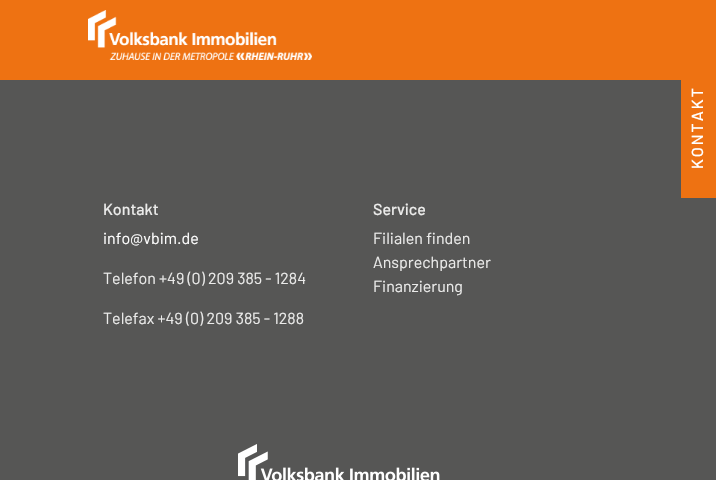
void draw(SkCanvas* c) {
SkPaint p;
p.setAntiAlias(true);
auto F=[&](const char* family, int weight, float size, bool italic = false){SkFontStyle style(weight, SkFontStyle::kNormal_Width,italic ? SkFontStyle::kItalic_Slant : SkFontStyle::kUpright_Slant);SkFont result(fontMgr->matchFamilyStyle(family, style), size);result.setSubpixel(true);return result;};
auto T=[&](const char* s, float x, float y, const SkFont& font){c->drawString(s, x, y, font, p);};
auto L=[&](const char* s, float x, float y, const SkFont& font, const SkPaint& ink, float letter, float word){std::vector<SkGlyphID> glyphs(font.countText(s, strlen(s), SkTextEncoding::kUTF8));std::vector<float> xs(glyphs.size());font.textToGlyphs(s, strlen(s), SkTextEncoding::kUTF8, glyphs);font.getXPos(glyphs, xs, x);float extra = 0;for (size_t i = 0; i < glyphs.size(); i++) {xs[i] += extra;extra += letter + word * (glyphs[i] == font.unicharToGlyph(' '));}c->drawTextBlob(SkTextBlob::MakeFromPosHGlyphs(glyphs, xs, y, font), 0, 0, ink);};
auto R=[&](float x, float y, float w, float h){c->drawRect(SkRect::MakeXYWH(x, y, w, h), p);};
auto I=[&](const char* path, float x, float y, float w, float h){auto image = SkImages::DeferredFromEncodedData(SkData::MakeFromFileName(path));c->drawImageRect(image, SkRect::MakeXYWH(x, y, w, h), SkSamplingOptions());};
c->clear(0xff565655);
p.setColor(0xffee7212);
R(0,0,716,80);
I("1.png",88,10,224,50);
R(681,80,35,118);
auto f1 = F("Barlow",500,16);
p.setColor(0xffffffff);
c->save();
c->rotate(-90,703,169);
L("KONTAKT",703,169,f1,p,2,0);
c->restore();
p.setColor(0xffebebea);
T("Kontakt",103,215,f1);
auto f2 = F("Barlow",400,16);
p.setColor(0xffffffff);
T("info@vbim.de",103,244,f2);
p.setColor(0xffebebea);
T("Telefon +49 (0) 209 385 - 1284",103,284,f2);
T("Telefax +49 (0) 209 385 - 1288",103,324,f2);
T("Service",373,215,f1);
T("Filialen finden",373,244,f2);
T("Ansprechpartner",373,268,f2);
T("Finanzierung",373,292,f2);
I("2.png",238,444,202,36);
}
